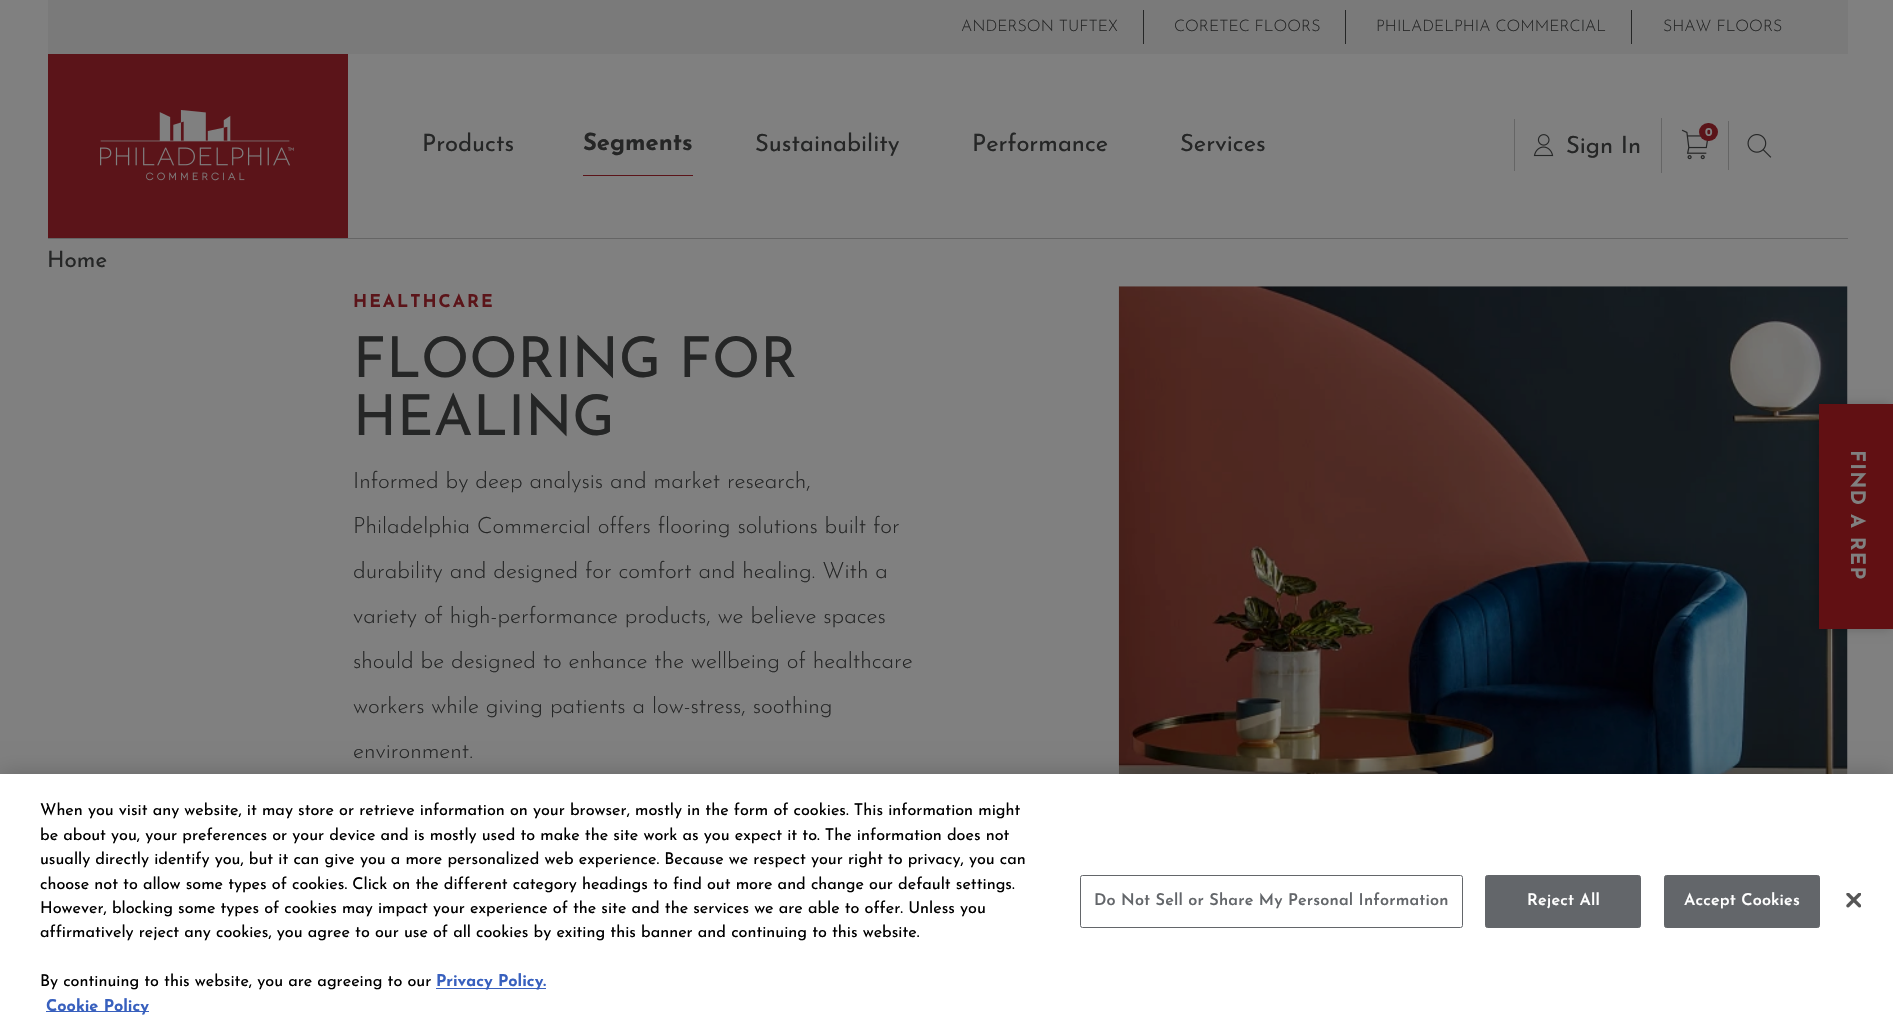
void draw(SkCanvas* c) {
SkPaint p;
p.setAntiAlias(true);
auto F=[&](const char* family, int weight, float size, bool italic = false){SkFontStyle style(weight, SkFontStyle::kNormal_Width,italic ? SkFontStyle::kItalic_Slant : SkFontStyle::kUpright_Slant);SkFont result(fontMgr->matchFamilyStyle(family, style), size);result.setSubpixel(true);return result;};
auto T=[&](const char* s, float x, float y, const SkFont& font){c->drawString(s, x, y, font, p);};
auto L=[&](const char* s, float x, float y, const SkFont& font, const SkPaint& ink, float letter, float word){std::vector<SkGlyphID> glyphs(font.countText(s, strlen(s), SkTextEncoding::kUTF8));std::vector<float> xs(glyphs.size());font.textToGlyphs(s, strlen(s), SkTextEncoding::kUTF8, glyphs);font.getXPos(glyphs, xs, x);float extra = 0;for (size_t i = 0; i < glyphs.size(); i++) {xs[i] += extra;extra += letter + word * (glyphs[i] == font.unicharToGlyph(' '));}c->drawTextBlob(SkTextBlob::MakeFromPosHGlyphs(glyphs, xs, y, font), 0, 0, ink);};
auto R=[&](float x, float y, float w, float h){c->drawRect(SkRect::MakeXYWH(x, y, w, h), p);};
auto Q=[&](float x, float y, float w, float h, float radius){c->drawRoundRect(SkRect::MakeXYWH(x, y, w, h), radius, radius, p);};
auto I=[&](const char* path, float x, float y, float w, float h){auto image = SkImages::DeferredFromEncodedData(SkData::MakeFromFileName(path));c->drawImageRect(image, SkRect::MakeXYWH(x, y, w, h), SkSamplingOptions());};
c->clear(0xff808080);
p.setColor(0xff7a7a7a);
R(48,0,1800,54);
p.setColor(0xff252626);
R(1143,10,1,34);
auto f1 = F("Josefin Sans",300,16);
T("ANDERSON TUFTEX",961,31,f1);
R(1345,10,1,34);
T("CORETEC FLOORS",1174,31,f1);
R(1631,10,1,34);
T("PHILADELPHIA COMMERCIAL",1376,31,f1);
T("SHAW FLOORS",1663,31,f1);
p.setColor(0xff656565);
R(48,238,1800,1);
p.setColor(0xff5b1419);
R(48,54,300,184);
I("1.png",100,110,194,71);
auto f2 = F("Josefin Sans",400,23.75);
p.setColor(0xff252626);
T("Products",422,151,f2);
p.setColor(0xff5b1419);
R(583,175,110,1);
auto f3 = F("Josefin Sans",700,23.75);
p.setColor(0xff252626);
T("Segments",583,150,f3);
T("Sustainability",755,151,f2);
T("Performance",972,151,f2);
T("Services",1180,151,f2);
p.setColor(0xff656565);
R(1661,118,1,55);
I("2.png",1681,129,27,31);
p.setColor(0xff5b1419);
Q(1699,123,19,18,9);
auto f4 = F("Josefin Sans",700,12);
p.setColor(0xff808080);
T("0",1705,136,f4);
p.setColor(0xff656565);
R(1728,121,1,49);
I("3.png",1747,134,25,24);
R(1514,119,1,52);
I("4.png",1533,134,21,23);
p.setColor(0xff252626);
T("Sign In",1566,153,f2);
auto f5 = F("Josefin Sans",400,22.5);
T("Home",47,267,f5);
auto f6 = F("Josefin Sans",700,17.5);
p.setColor(0xff5b1419);
L("HEALTHCARE",353,307,f6,p,2,0);
auto f7 = F("Josefin Sans",400,56.25);
p.setColor(0xff252626);
T("FLOORING FOR",353,377,f7);
T("HEALING",353,435,f7);
auto f8 = F("Josefin Sans",300,22.5);
T("Informed by deep analysis and market research,",353,488,f8);
T("Philadelphia Commercial offers flooring solutions built for",353,533,f8);
T("durability and designed for comfort and healing. With a",353,578,f8);
T("variety of high-performance products, we believe spaces",353,623,f8);
T("should be designed to enhance the wellbeing of healthcare",353,668,f8);
T("workers while giving patients a low-stress, soothing",353,713,f8);
T("environment.",353,758,f8);
I("5.png",1118,286,730,488);
p.setColor(0x33000000);
p.setMaskFilter(SkMaskFilter::MakeBlur(kNormal_SkBlurStyle, 5));
c->drawRect(SkRect::MakeXYWH(1816,404,75,225),p);
p.setMaskFilter(nullptr);
p.setColor(0xff611013);
R(1819,404,74,225);
auto f9 = F("Josefin Sans",700,20);
p.setColor(0xff808080);
c->save();
c->rotate(90,1851,450);
L("FIND A REP",1851,450,f9,p,1.25,0);
c->restore();
p.setColor(0x33000000);
p.setMaskFilter(SkMaskFilter::MakeBlur(kNormal_SkBlurStyle, 11));
c->drawRect(SkRect::MakeXYWH(0,774,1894,257),p);
p.setMaskFilter(nullptr);
p.setColor(0xffffffff);
R(0,774,1893,257);
auto f10 = F("Josefin Sans",400,16.25);
p.setColor(0xff000000);
T("When you visit any website, it may store or retrieve information on your browser, mostly in the form of cookies. This information might",40,815,f10);
T("be about you, your preferences or your device and is mostly used to make the site work as you expect it to. The information does not",40,840,f10);
T("usually directly identify you, but it can give you a more personalized web experience. Because we respect your right to privacy, you can",40,864,f10);
T("choose not to allow some types of cookies. Click on the different category headings to find out more and change our default settings.",40,889,f10);
T("However, blocking some types of cookies may impact your experience of the site and the services we are able to offer. Unless you",40,913,f10);
T("affirmatively reject any cookies, you agree to our use of all cookies by exiting this banner and continuing to this website.",40,937,f10);
T("By continuing to this website, you are agreeing to our",40,986,f10);
p.setColor(0xff3860be);
R(436,988,110,1);
auto f11 = F("Josefin Sans",700,16.25);
T("Privacy Policy.",436,986,f11);
R(46,1011,103,1);
T("Cookie Policy",46,1011,f11);
p.setStroke(true);
p.setStrokeWidth(1);
p.setColor(0xff63666a);
c->drawRoundRect(SkRect::MakeXYWH(1080.5,875.5,382,52),2,2,p);
auto f12 = F("Josefin Sans",600,16.25);
p.setStroke(false);
L("Do Not Sell or Share My Personal Information",1094,905,f12,p,.15,0);
c->drawRoundRect(SkRect::MakeXYWH(1485.5,875.5,155,52),2,2,p);
p.setStroke(true);
c->drawRoundRect(SkRect::MakeXYWH(1485.5,875.5,155,52),2,2,p);
p.setStroke(false);
p.setColor(0xffffffff);
L("Reject All",1527,905,f12,p,.15,0);
p.setColor(0xff63666a);
c->drawRoundRect(SkRect::MakeXYWH(1664.5,875.5,155,52),2,2,p);
p.setStroke(true);
c->drawRoundRect(SkRect::MakeXYWH(1664.5,875.5,155,52),2,2,p);
p.setStroke(false);
p.setColor(0xffffffff);
L("Accept Cookies",1684,905,f12,p,.15,0);
I("6.png",1846,893,15,15);
}
